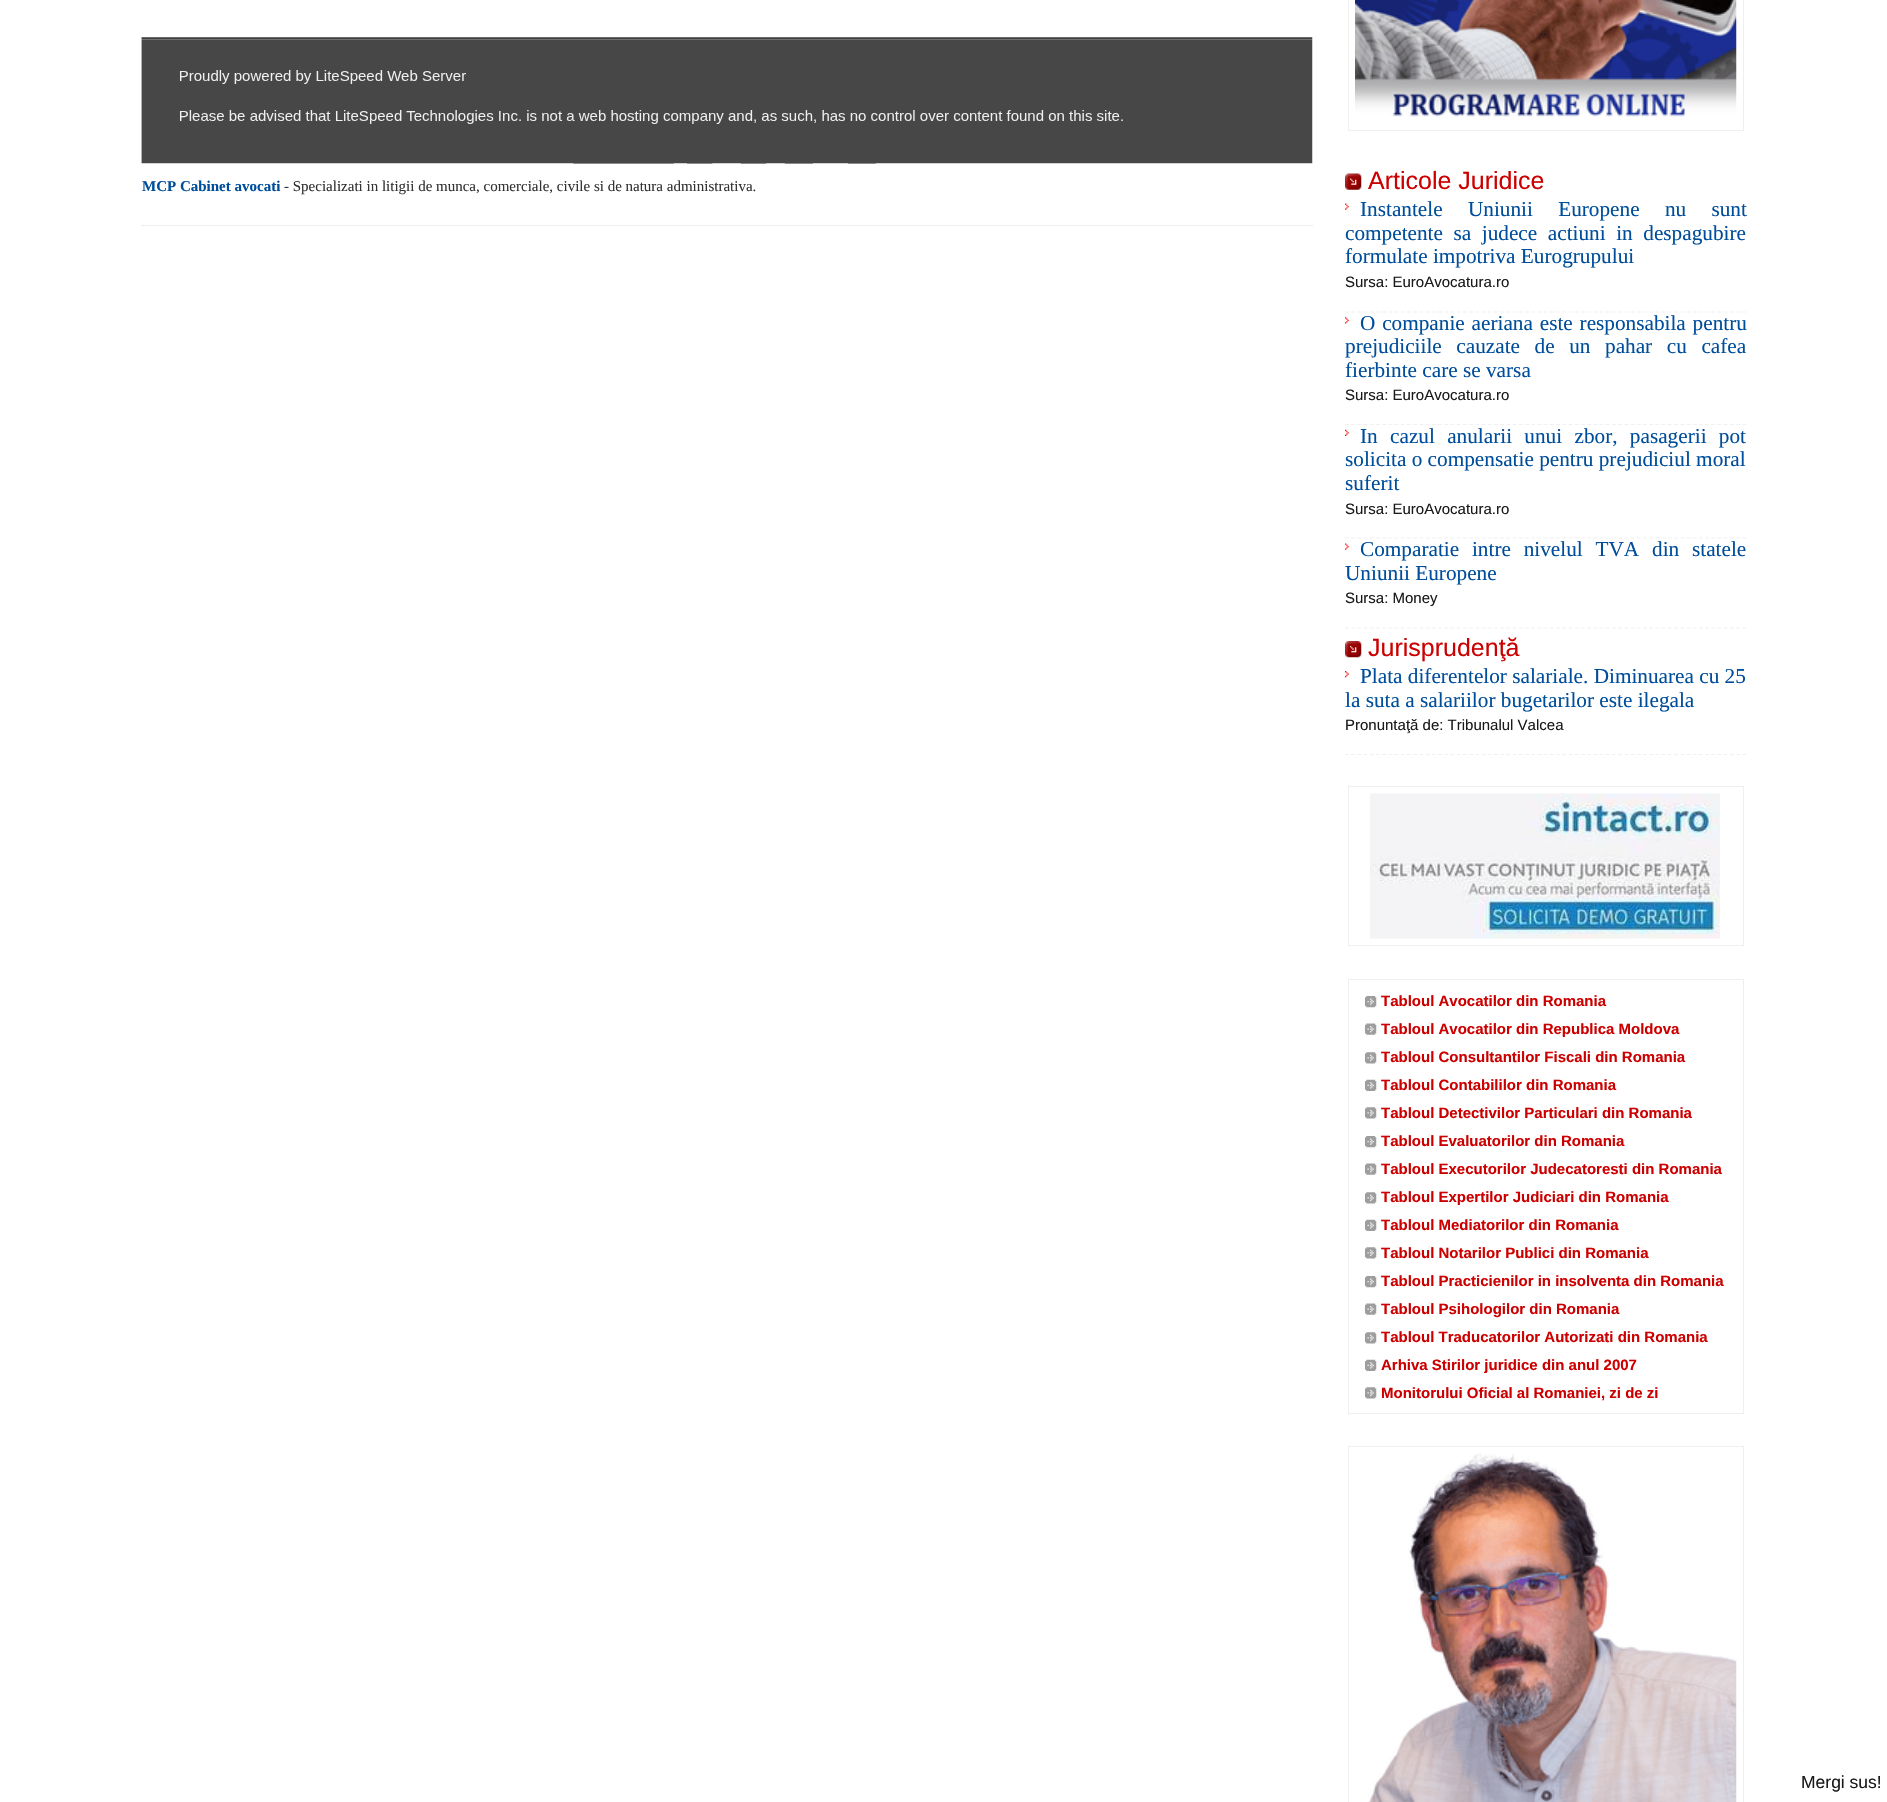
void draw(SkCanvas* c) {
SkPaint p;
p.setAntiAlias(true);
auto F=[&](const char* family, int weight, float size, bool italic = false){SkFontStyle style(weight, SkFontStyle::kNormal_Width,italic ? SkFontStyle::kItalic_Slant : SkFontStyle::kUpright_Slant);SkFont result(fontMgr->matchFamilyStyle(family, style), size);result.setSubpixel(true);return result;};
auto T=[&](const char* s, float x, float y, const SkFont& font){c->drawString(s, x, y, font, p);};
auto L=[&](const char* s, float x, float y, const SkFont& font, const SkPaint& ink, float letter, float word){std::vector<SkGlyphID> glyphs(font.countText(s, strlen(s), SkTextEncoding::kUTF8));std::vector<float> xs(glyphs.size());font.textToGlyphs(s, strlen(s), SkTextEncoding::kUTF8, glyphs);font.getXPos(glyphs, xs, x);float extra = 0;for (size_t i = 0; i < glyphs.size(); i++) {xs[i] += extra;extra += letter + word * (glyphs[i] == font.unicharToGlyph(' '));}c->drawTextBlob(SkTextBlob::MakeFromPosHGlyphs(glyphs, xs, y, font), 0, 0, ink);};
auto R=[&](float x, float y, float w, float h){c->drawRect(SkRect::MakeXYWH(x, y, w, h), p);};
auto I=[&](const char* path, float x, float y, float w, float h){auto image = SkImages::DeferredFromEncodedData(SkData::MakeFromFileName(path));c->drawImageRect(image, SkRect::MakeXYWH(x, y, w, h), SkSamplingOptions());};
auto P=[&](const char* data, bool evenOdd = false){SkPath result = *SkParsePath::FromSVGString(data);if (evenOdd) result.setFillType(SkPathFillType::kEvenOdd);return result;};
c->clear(0xffffffff);
I("1.png",141,37,1172,127);
auto f1 = F("Liberation Serif",700,15);
p.setColor(0xff004e9b);
T("MCP Cabinet avocati",142,191,f1);
auto f2 = F("Liberation Serif",400,15);
p.setColor(0xff333333);
T("- Specializati in litigii de munca, comerciale, civile si de natura administrativa.",284,191,f2);
p.setColor(0xffeeeeee);
R(141,225,1172,1);
p.setStroke(true);
p.setStrokeWidth(1);
p.setColor(0xffefefef);
c->drawRect(SkRect::MakeXYWH(1348.5,-.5,395,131),p);
I("2.png",1355,0,382,117);
I("3.png",1345,173,17,17);
auto f3 = F("Liberation Sans",400,25);
p.setStroke(false);
p.setColor(0xffcc0000);
T("Articole Juridice",1368,189,f3);
I("4.png",1345,203,4,7);
auto f4 = F("Liberation Serif",400,21.25);
p.setColor(0xff004e9b);
L("Instantele Uniunii Europene nu sunt",1360,216,f4,p,0,20);
L("competente sa judece actiuni in despagubire",1345,240,f4,p,0,5.25);
T("formulate impotriva Eurogrupului",1345,263,f4);
auto f5 = F("Liberation Sans",400,15);
p.setColor(0xff1a1a1a);
T("Sursa: EuroAvocatura.ro",1345,287,f5);
p.setStroke(true);
p.setStrokeWidth(1.2);
p.setColor(0xfff0f0f0);
p.setPathEffect(SkDashPathEffect::Make({{3.75f,2.46f}}, 0));
c->drawPath(P("M1345 312h401"),p);
p.setPathEffect(nullptr);
I("5.png",1345,317,4,7);
p.setStroke(false);
p.setColor(0xff004e9b);
L("O companie aeriana este responsabila pentru",1360,330,f4,p,0,1.5);
L("prejudiciile cauzate de un pahar cu cafea",1345,353,f4,p,0,9.25);
T("fierbinte care se varsa",1345,377,f4);
p.setColor(0xff1a1a1a);
T("Sursa: EuroAvocatura.ro",1345,400,f5);
p.setStroke(true);
p.setColor(0xfff0f0f0);
p.setPathEffect(SkDashPathEffect::Make({{3.75f,2.46f}}, 0));
c->drawPath(P("M1345 424.5h401"),p);
p.setPathEffect(nullptr);
I("6.png",1345,429,4,7);
p.setStroke(false);
p.setColor(0xff004e9b);
L("In cazul anularii unui zbor, pasagerii pot",1360,443,f4,p,0,7);
T("solicita o compensatie pentru prejudiciul moral",1345,466,f4);
T("suferit",1345,490,f4);
p.setColor(0xff1a1a1a);
T("Sursa: EuroAvocatura.ro",1345,514,f5);
p.setStroke(true);
p.setColor(0xfff0f0f0);
p.setPathEffect(SkDashPathEffect::Make({{3.75f,2.46f}}, 0));
c->drawPath(P("M1345 538h401"),p);
p.setPathEffect(nullptr);
I("4.png",1345,543,4,7);
p.setStroke(false);
p.setColor(0xff004e9b);
L("Comparatie intre nivelul TVA din statele",1360,556,f4,p,0,7.5);
T("Uniunii Europene",1345,580,f4);
p.setColor(0xff1a1a1a);
T("Sursa: Money",1345,603,f5);
p.setStroke(true);
p.setColor(0xfff0f0f0);
p.setPathEffect(SkDashPathEffect::Make({{3.75f,2.46f}}, 0));
c->drawPath(P("M1345 628h401"),p);
p.setPathEffect(nullptr);
I("7.png",1345,641,17,17);
p.setStroke(false);
p.setColor(0xffcc0000);
T("Jurisprudenţă",1368,656,f3);
I("8.png",1345,671,4,7);
p.setColor(0xff004e9b);
T("Plata diferentelor salariale. Diminuarea cu 25",1360,683,f4);
T("la suta a salariilor bugetarilor este ilegala",1345,707,f4);
p.setColor(0xff1a1a1a);
T("Pronuntaţă de: Tribunalul Valcea",1345,730,f5);
p.setStroke(true);
p.setColor(0xfff0f0f0);
p.setPathEffect(SkDashPathEffect::Make({{3.75f,2.46f}}, 0));
c->drawPath(P("M1345 754.5h401"),p);
p.setPathEffect(nullptr);
p.setStrokeWidth(1);
p.setColor(0xffefefef);
c->drawRect(SkRect::MakeXYWH(1348.5,786.5,395,159),p);
I("9.png",1370,793,350,146);
c->drawRect(SkRect::MakeXYWH(1348.5,979.5,395,434),p);
I("10.png",1365,996,12,12);
auto f6 = F("Liberation Sans",700,15);
p.setStroke(false);
p.setColor(0xffcc0000);
T("Tabloul Avocatilor din Romania",1381,1006,f6);
I("11.png",1365,1023,12,12);
T("Tabloul Avocatilor din Republica Moldova",1381,1034,f6);
I("12.png",1365,1052,12,12);
T("Tabloul Consultantilor Fiscali din Romania",1381,1062,f6);
I("13.png",1365,1079,12,12);
T("Tabloul Contabililor din Romania",1381,1090,f6);
I("12.png",1365,1107,12,12);
T("Tabloul Detectivilor Particulari din Romania",1381,1118,f6);
I("10.png",1365,1136,12,12);
T("Tabloul Evaluatorilor din Romania",1381,1146,f6);
I("11.png",1365,1163,12,12);
T("Tabloul Executorilor Judecatoresti din Romania",1381,1174,f6);
I("12.png",1365,1192,12,12);
T("Tabloul Expertilor Judiciari din Romania",1381,1202,f6);
I("13.png",1365,1219,12,12);
T("Tabloul Mediatorilor din Romania",1381,1230,f6);
I("12.png",1365,1247,12,12);
T("Tabloul Notarilor Publici din Romania",1381,1258,f6);
I("10.png",1365,1276,12,12);
T("Tabloul Practicienilor in insolventa din Romania",1381,1286,f6);
I("11.png",1365,1303,12,12);
T("Tabloul Psihologilor din Romania",1381,1314,f6);
I("12.png",1365,1332,12,12);
T("Tabloul Traducatorilor Autorizati din Romania",1381,1342,f6);
I("13.png",1365,1359,12,12);
T("Arhiva Stirilor juridice din anul 2007",1381,1370,f6);
I("12.png",1365,1387,12,12);
T("Monitorului Oficial al Romaniei, zi de zi",1381,1398,f6);
p.setStroke(true);
p.setColor(0xffefefef);
c->drawRect(SkRect::MakeXYWH(1348.5,1446.5,395,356),p);
I("14.png",1368,1453,369,349);
auto f7 = F("Liberation Sans",400,17.5);
p.setStroke(false);
p.setColor(0xff1a1a1a);
T("Mergi sus!",1801,1788,f7);
}
